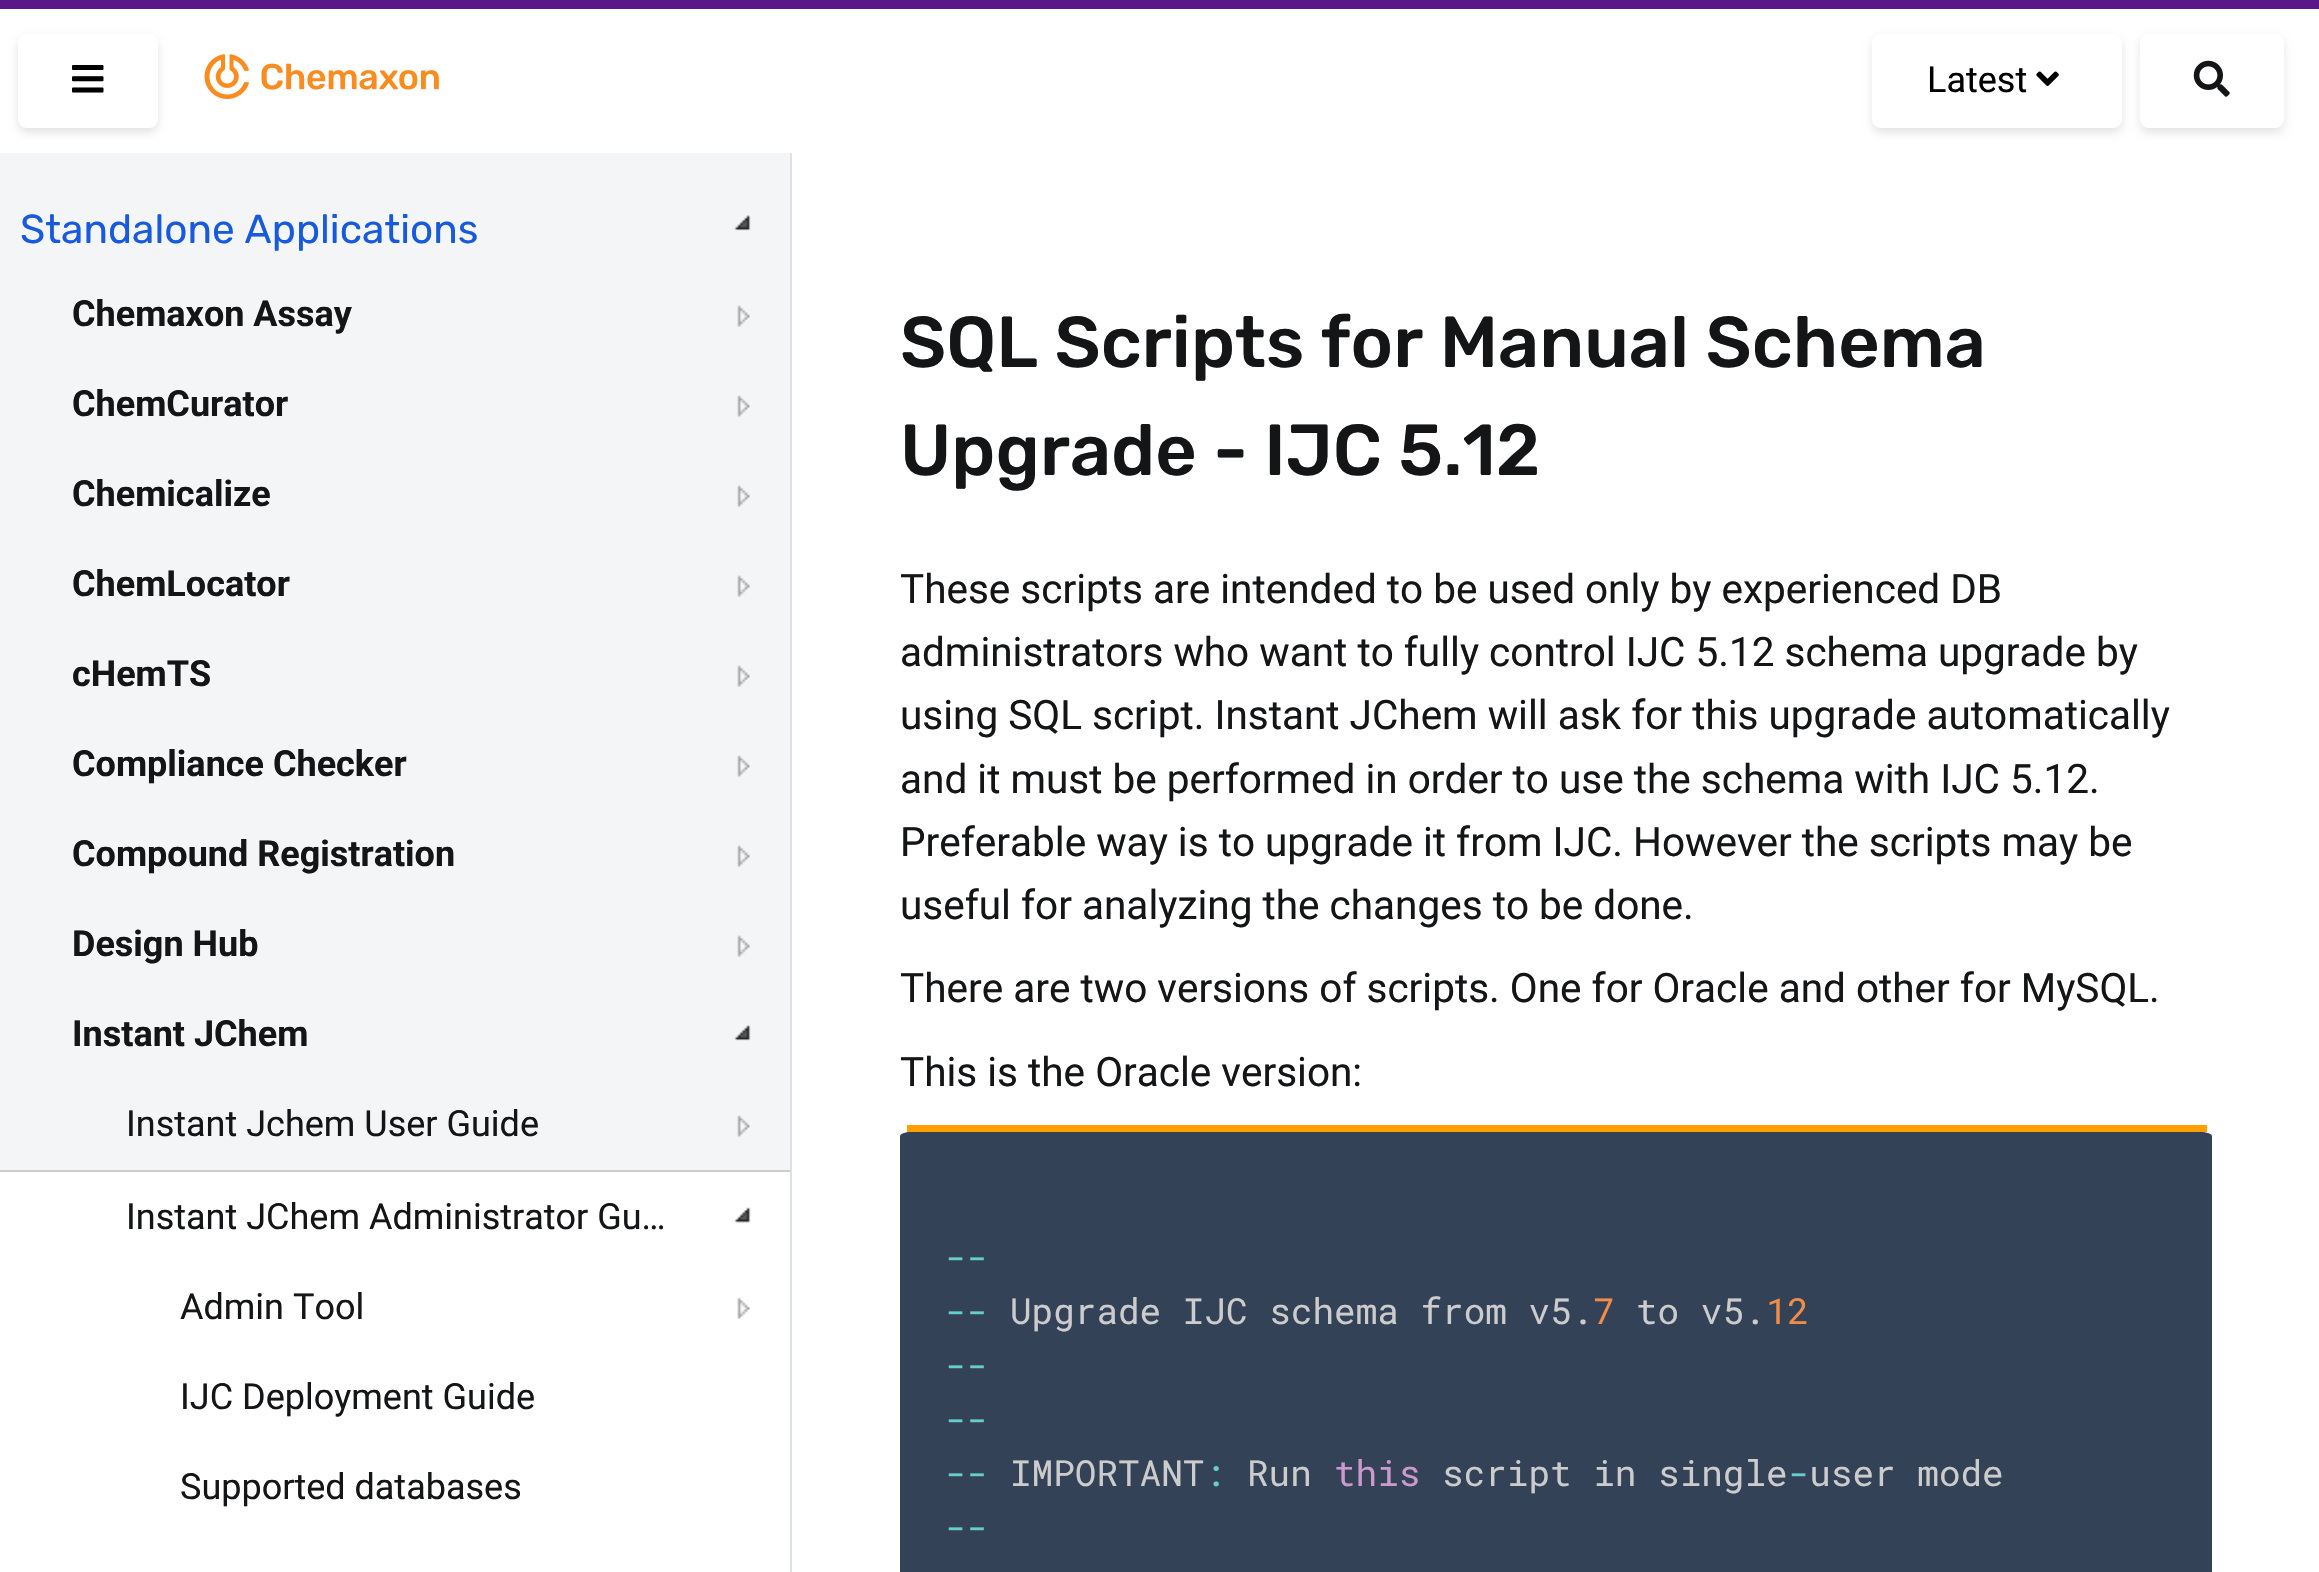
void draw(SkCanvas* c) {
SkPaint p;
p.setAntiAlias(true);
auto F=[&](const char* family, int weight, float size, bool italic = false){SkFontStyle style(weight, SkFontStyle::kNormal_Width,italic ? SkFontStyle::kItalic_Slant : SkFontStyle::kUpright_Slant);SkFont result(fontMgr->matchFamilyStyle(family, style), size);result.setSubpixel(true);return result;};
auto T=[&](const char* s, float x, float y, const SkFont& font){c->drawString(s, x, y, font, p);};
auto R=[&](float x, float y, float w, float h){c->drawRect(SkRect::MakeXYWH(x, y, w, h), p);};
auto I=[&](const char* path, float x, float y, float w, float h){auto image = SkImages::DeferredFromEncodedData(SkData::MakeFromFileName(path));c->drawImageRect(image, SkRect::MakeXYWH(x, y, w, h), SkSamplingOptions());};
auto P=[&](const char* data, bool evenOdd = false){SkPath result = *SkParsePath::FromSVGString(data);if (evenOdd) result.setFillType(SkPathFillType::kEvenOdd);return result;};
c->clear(0xffffffff);
p.setColor(0xff5a1788);
R(0,0,2319,9);
c->save();
c->clipPath(P("M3 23h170v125h-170zm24 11h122c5 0 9 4 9 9v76c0 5-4 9-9 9h-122c-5 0-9-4-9-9v-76c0-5 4-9 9-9z",true),true);
p.setColor(0x1a000000);
p.setMaskFilter(SkMaskFilter::MakeBlur(kNormal_SkBlurStyle, 4.5));
c->drawRoundRect(SkRect::MakeXYWH(18,38,140,95),9,9,p);
p.setMaskFilter(nullptr);
c->restore();
I("1.png",72,65,32,28);
I("2.png",204,54,235,45);
c->save();
c->clipPath(P("M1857 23h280v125h-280zm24 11h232c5 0 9 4 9 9v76c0 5-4 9-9 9h-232c-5 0-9-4-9-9v-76c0-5 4-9 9-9z",true),true);
p.setMaskFilter(SkMaskFilter::MakeBlur(kNormal_SkBlurStyle, 4.5));
c->drawRoundRect(SkRect::MakeXYWH(1872,38,250,95),9,9,p);
p.setMaskFilter(nullptr);
c->restore();
auto f1 = F("Roboto",400,36);
p.setColor(0xff000000);
T("Latest",1927,92,f1);
I("3.png",2036,71,23,15);
c->save();
c->clipPath(P("M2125 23h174v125h-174zm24 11h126c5 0 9 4 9 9v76c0 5-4 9-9 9h-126c-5 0-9-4-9-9v-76c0-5 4-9 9-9z",true),true);
p.setColor(0x1a000000);
p.setMaskFilter(SkMaskFilter::MakeBlur(kNormal_SkBlurStyle, 4.5));
c->drawRoundRect(SkRect::MakeXYWH(2140,38,144,95),9,9,p);
p.setMaskFilter(nullptr);
c->restore();
I("4.png",2193,60,37,37);
p.setColor(0xfff4f5f7);
R(0,153,790,1017);
p.setColor(0xffdae1e7);
R(790,153,2,1419);
auto f2 = F("Rubik",400,40.5);
p.setColor(0xff185add);
T("Standalone Applications",20,243,f2);
I("5.png",734,215,17,16);
auto f3 = F("Roboto",700,36);
p.setColor(0xff131517);
T("Chemaxon Assay",72,326,f3);
I("6.png",737,305,13,22);
T("ChemCurator",72,416,f3);
I("6.png",737,395,13,22);
T("Chemicalize",72,506,f3);
I("6.png",737,485,13,22);
T("ChemLocator",72,596,f3);
I("6.png",737,575,13,22);
T("cHemTS",72,686,f3);
I("6.png",737,665,13,22);
T("Compliance Checker",72,776,f3);
I("6.png",737,755,13,22);
T("Compound Registration",72,866,f3);
I("6.png",737,845,13,22);
T("Design Hub",72,956,f3);
I("6.png",737,935,13,22);
T("Instant JChem",72,1046,f3);
I("5.png",734,1025,17,16);
T("Instant Jchem User Guide",126,1136,f1);
I("6.png",737,1115,13,22);
p.setColor(0xffcccccc);
R(0,1170,790,2);
p.setColor(0xff131517);
T("Instant JChem Administrator Gu…",126,1229,f1);
I("7.png",734,1207,17,16);
T("Admin Tool",180,1319,f1);
I("8.png",737,1297,14,23);
T("IJC Deployment Guide",180,1409,f1);
T("Supported databases",180,1499,f1);
auto f4 = F("Rubik",500,72);
T("SQL Scripts for Manual Schema",900,367,f4);
T("Upgrade - IJC 5.12",900,475,f4);
auto f5 = F("Roboto",400,40.5);
T("These scripts are intended to be used only by experienced DB",900,603,f5);
T("administrators who want to fully control IJC 5.12 schema upgrade by",900,666,f5);
T("using SQL script. Instant JChem will ask for this upgrade automatically",900,729,f5);
T("and it must be performed in order to use the schema with IJC 5.12.",900,793,f5);
T("Preferable way is to upgrade it from IJC. However the scripts may be",900,856,f5);
T("useful for analyzing the changes to be done.",900,919,f5);
T("There are two versions of scripts. One for Oracle and other for MySQL.",900,1002,f5);
T("This is the Oracle version:",900,1086,f5);
p.setColor(0xff344258);
c->drawPath(P("M911 1132h1289c7 0 12 2 12 4v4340c0 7-5 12-12 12h-1289c-6 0-11-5-11-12v-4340c0-2 5-4 11-4z"),p);
p.setColor(0xffffa000);
R(907,1125,1300,7);
auto f6 = F("Roboto Mono",400,36);
p.setColor(0xff67cdcc);
T("--",945,1270,f6);
T("--",945,1324,f6);
p.setColor(0xffcccccc);
T("Upgrade IJC schema from v5.",1010,1324,f6);
p.setColor(0xfff08d49);
T("7",1593,1324,f6);
p.setColor(0xffcccccc);
T("to v5.",1636,1324,f6);
p.setColor(0xfff08d49);
T("12",1766,1324,f6);
p.setColor(0xff67cdcc);
T("--",945,1378,f6);
T("--",945,1432,f6);
T("--",945,1486,f6);
p.setColor(0xffcccccc);
T("IMPORTANT",1010,1486,f6);
p.setColor(0xff67cdcc);
T(":",1204,1486,f6);
p.setColor(0xffcccccc);
T("Run",1247,1486,f6);
p.setColor(0xffcc99cd);
T("this",1334,1486,f6);
p.setColor(0xffcccccc);
T("script in single user mode",1442,1486,f6);
p.setColor(0xff67cdcc);
T("-",1788,1486,f6);
T("--",945,1540,f6);
}
